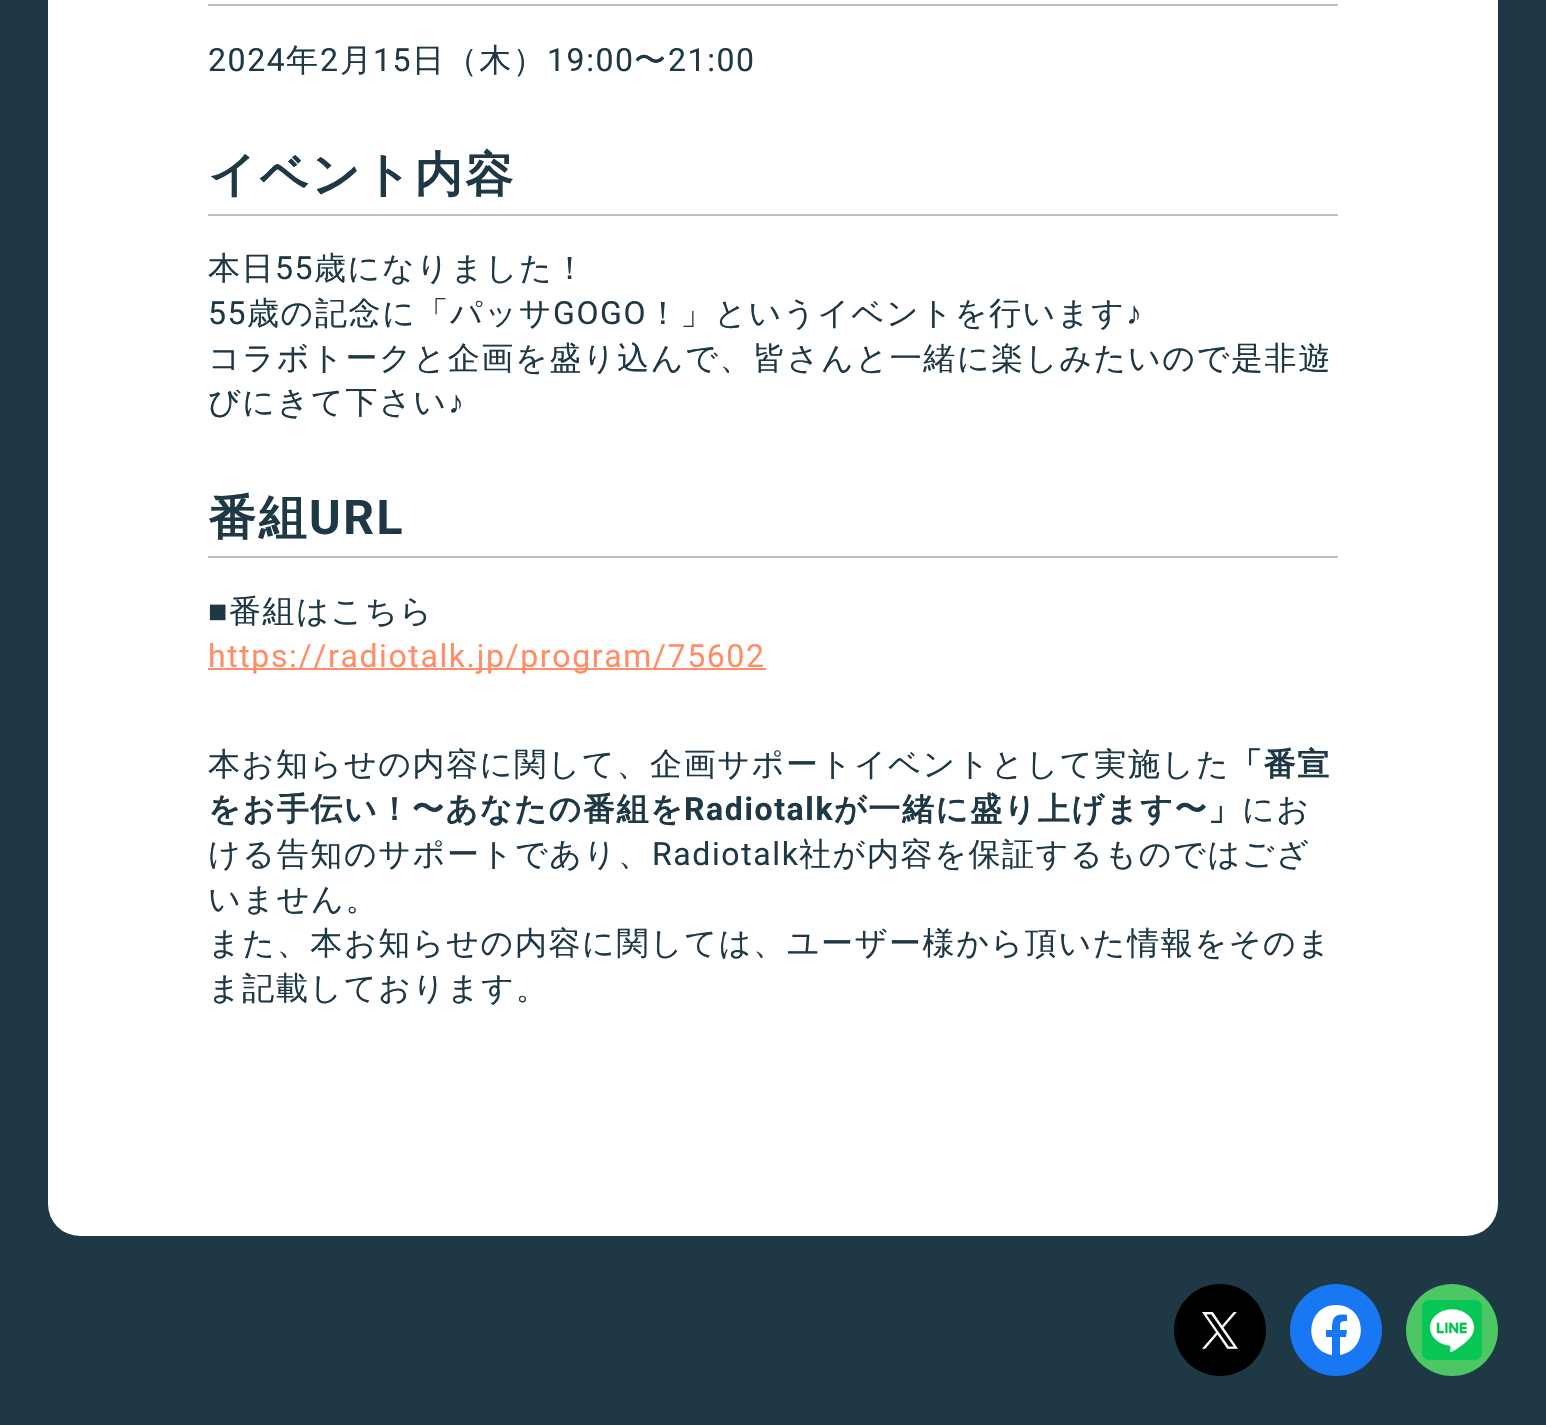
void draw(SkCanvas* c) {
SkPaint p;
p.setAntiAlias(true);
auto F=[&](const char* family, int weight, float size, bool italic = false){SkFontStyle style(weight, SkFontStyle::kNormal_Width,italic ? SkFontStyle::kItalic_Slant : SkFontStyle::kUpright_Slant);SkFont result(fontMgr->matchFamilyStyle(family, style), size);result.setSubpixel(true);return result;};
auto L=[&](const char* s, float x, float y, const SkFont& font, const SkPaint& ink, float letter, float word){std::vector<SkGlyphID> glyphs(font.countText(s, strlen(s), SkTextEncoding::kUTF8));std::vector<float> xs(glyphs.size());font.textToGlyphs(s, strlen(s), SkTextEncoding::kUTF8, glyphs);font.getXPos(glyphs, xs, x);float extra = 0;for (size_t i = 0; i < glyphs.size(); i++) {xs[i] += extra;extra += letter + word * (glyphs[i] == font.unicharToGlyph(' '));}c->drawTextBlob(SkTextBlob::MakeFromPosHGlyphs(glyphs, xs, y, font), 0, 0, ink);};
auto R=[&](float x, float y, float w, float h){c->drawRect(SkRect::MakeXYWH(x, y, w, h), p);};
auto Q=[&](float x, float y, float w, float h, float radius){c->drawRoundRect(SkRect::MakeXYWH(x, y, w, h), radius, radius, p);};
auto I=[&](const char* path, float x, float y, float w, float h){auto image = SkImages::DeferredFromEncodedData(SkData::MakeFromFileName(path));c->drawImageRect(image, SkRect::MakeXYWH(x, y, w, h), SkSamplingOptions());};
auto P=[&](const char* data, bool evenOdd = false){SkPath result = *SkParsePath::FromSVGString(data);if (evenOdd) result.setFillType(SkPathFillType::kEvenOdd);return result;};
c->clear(0xff1e3846);
p.setColor(0xffffffff);
Q(48,-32,1450,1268,32);
p.setColor(0xffbcc3c8);
R(208,4,1130,2);
auto f1 = F("Roboto",400,32);
p.setColor(0xff1e3846);
L("2024",208,71,f1,p,1.6,0);
auto f2 = F("WenQuanYi Zen Hei",500,32);
L("年",286,71,f2,p,1.6,0);
L("2",320,71,f1,p,1.6,0);
L("月",340,71,f2,p,1.6,0);
L("15",373,71,f1,p,1.6,0);
L("日（木）",412,71,f2,p,1.6,0);
L("19:00",547,71,f1,p,1.6,0);
L("〜",634,71,f2,p,1.6,0);
L("21:00",668,71,f1,p,1.6,0);
p.setColor(0xffbcc3c8);
R(208,214,1130,2);
auto f3 = F("WenQuanYi Zen Hei",700,48);
p.setColor(0xff1e3846);
L("イベント内容",208,191,f3,p,2.5,0);
L("本日",208,279,f2,p,1.6,0);
L("55",275,279,f1,p,1.6,0);
L("歳になりました！",314,279,f2,p,1.6,0);
L("55",208,324,f1,p,1.6,0);
L("歳の記念に「パッサ",247,324,f2,p,1.6,0);
L("GOGO",553,324,f1,p,1.6,0);
L("！」というイベントを行います",647,324,f2,p,1.6,0);
auto f4 = F("Liberation Sans",400,32);
L("♪",1126,324,f4,p,1.6,0);
L("コラボトークと企画を盛り込んで、皆さんと一緒に楽しみたいので是非遊",208,369,f2,p,1.6,0);
L("びにきて下さい",208,413,f2,p,1.6,0);
L("♪",448,413,f4,p,1.6,0);
p.setColor(0xffbcc3c8);
R(208,556,1130,2);
p.setColor(0xff1e3846);
L("番組",208,534,f3,p,2.5,0);
auto f5 = F("Roboto",700,48);
L("URL",309,534,f5,p,2.5,0);
L("■",208,622,f4,p,1.6,0);
L("番組はこちら",229,622,f2,p,1.6,0);
p.setColor(0xffff8e66);
R(208,668,558,2);
L("https://radiotalk.jp/program/75602",208,667,f1,p,1.6,0);
p.setColor(0xff1e3846);
L("本お知らせの内容に関して、企画サポートイベントとして実施した",208,775,f2,p,1.6,0);
auto f6 = F("WenQuanYi Zen Hei",700,32);
L("「番宣",1230,775,f6,p,1.6,0);
L("をお手伝い！〜あなたの番組を",208,820,f6,p,1.6,0);
auto f7 = F("Roboto",700,32);
L("Radiotalk",684,820,f7,p,1.6,0);
L("が一緒に盛り上げます〜」",834,820,f6,p,1.6,0);
L("にお",1242,820,f2,p,1.6,0);
L("ける告知のサポートであり、",208,865,f2,p,1.6,0);
L("Radiotalk",652,865,f1,p,1.6,0);
L("社が内容を保証するものではござ",799,865,f2,p,1.6,0);
L("いません。",208,910,f2,p,1.6,0);
L("また、本お知らせの内容に関しては、ユーザー様から頂いた情報をそのま",208,954,f2,p,1.6,0);
L("ま記載しております。",208,999,f2,p,1.6,0);
p.setColor(0xff000000);
c->drawCircle(1220,1330,46,p);
I("1.png",1202,1312,36,37);
p.setColor(0xff1877f2);
c->drawCircle(1336,1330,46,p);
p.setColor(0xffffffff);
c->drawPath(P("M1336 1305c-30 0-34 45-4 50v-18h-6v-7h6c0-12 2-17 15-15v6c-8 0-7 2-7 9h7l-1 7h-6v18c30-5 27-50-4-50z"),p);
p.setColor(0xff4cc764);
c->drawCircle(1452,1330,46,p);
I("2.png",1422,1300,60,60);
}
